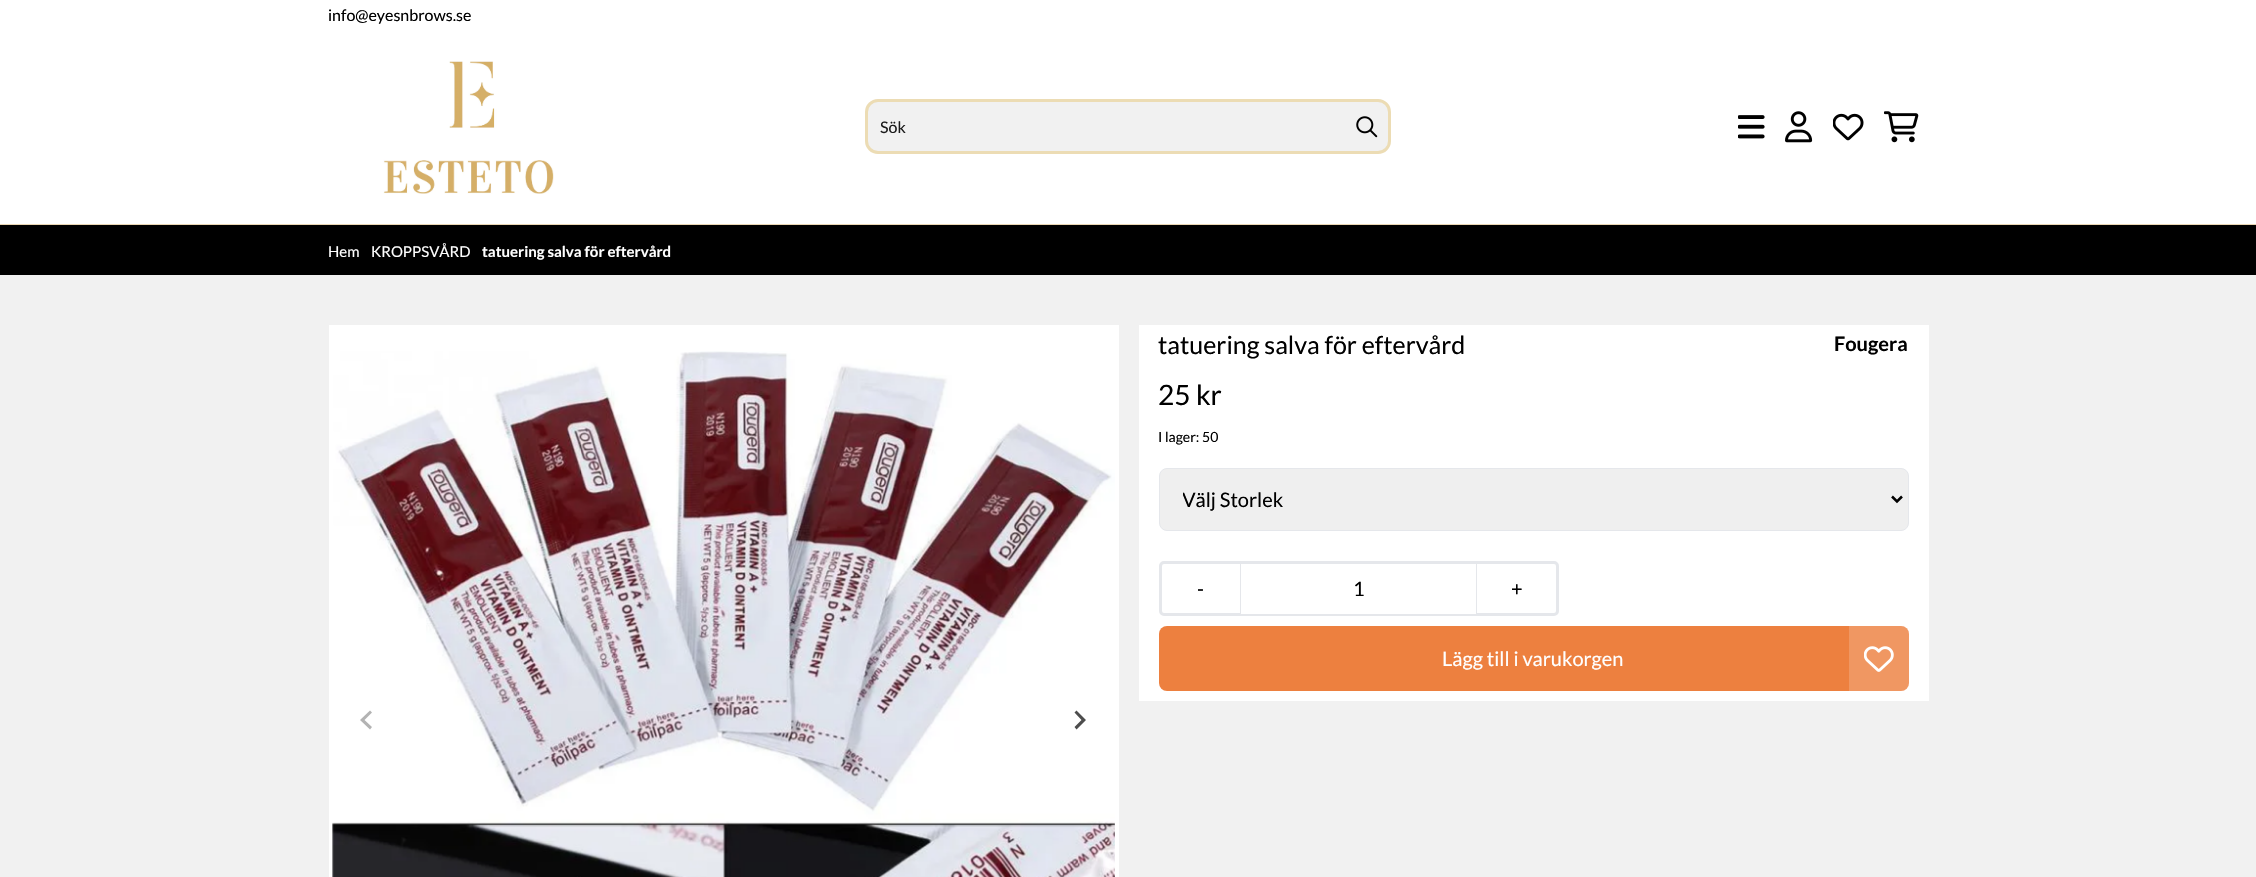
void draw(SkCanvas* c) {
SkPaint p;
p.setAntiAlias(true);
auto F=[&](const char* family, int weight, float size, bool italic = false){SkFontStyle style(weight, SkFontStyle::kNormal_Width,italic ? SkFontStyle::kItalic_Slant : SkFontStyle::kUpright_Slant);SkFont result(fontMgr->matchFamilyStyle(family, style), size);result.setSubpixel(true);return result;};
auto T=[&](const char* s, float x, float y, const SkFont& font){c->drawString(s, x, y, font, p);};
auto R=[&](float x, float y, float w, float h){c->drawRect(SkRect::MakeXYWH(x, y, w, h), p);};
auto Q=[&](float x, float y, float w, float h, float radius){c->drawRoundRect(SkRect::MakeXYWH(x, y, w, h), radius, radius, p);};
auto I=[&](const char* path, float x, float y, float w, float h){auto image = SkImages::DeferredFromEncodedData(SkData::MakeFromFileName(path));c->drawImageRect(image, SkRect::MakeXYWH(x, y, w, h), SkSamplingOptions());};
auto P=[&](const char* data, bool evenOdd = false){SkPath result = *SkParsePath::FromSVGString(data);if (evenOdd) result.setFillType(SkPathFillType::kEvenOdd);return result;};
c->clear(0xfff1f1f1);
p.setColor(0xffffffff);
R(0,0,2256,224);
auto f1 = F("Lato",400,16);
p.setColor(0xff000000);
T("info@eyesnbrows.se",328,21,f1);
p.setColor(0xffead7b4);
R(0,224,2256,1);
I("1.png",383,61,171,133);
p.setColor(0xfff1f1f1);
c->drawRoundRect(SkRect::MakeXYWH(866.5,100.5,523,52),11.5,11.5,p);
p.setStroke(true);
p.setStrokeWidth(3);
p.setColor(0xffecdcb4);
c->drawRoundRect(SkRect::MakeXYWH(866.5,100.5,523,52),11.5,11.5,p);
p.setStroke(false);
p.setColor(0xff1b1b1b);
T("Sök",880,133,f1);
I("2.png",1356,116,22,22);
I("3.png",1738,115,27,24);
I("4.png",1785,111,28,32);
I("5.png",1833,113,31,28);
I("6.png",1884,111,35,32);
p.setColor(0xff000000);
R(0,225,2256,50);
auto f2 = F("Lato",400,15);
p.setColor(0xffffffff);
T("Hem",328,257,f2);
T("KROPPSVÅRD",371,257,f2);
auto f3 = F("Lato",700,15);
T("tatuering salva för eftervård",482,257,f3);
R(329,325,790,552);
I("7.png",332,351,783,526);
p.setColor(0xffb3b3b3);
c->drawPath(P("M370 710.5l2 2l-7.5 7.5l7.5 7l-2 2.5l-10-9.5z"),p);
p.setColor(0xff4d4d4d);
c->drawPath(P("M1076.5 710.5l-2 2l7 7.5l-7 7l2 2.5l9.5-9.5z"),p);
p.setColor(0xffffffff);
R(1139,325,790,376);
auto f4 = F("Lato",400,25);
p.setColor(0xff000000);
T("tatuering salva för eftervård",1158,354,f4);
auto f5 = F("Lato",700,20);
T("Fougera",1834,351,f5);
auto f6 = F("Lato",400,28);
T("25 kr",1158,405,f6);
auto f7 = F("Lato",400,14);
T("I lager: 50",1158,442,f7);
p.setColor(0xffefefef);
c->drawRoundRect(SkRect::MakeXYWH(1159.5,468.5,749,62),7.5,7.5,p);
p.setStroke(true);
p.setStrokeWidth(1);
p.setColor(0xffe5e7eb);
c->drawRoundRect(SkRect::MakeXYWH(1159.5,468.5,749,62),7.5,7.5,p);
p.setStrokeWidth(2.5);
p.setColor(0xff000000);
c->drawPath(P("M1892 496.5l5 5l5-5"),p);
c->save();
c->clipRect(SkRect::MakeXYWH(1183,486,687,27));
auto f8 = F("Lato",400,20);
p.setStroke(false);
T("Välj Storlek",1182,507,f8);
c->restore();
p.setStroke(true);
p.setStrokeWidth(3);
p.setColor(0xffe5e7eb);
c->drawRoundRect(SkRect::MakeXYWH(1160.5,562.5,397,52),3.5,3.5,p);
p.setStroke(false);
p.setColor(0xff000000);
T("-",1197,596,f8);
p.setColor(0xffffffff);
R(1241,613,235,1);
p.setColor(0xffe5e7eb);
R(1240,564,1,50);
p.setColor(0xff000000);
T("1",1353,596,f8);
p.setColor(0xffe5e7eb);
R(1476,564,1,50);
p.setColor(0xff000000);
T("+",1511,596,f8);
p.setColor(0xffed803f);
Q(1159,626,750,65,8);
p.setColor(0xffffffff);
T("Lägg till i varukorgen",1442,666,f8);
p.setColor(0x2effffff);
c->drawPath(P("M1849 626h52c4.5 0 8 3.5 8 8v49c0 4.5-3.5 8-8 8h-52z"),p);
I("8.png",1864,646,30,26);
}
